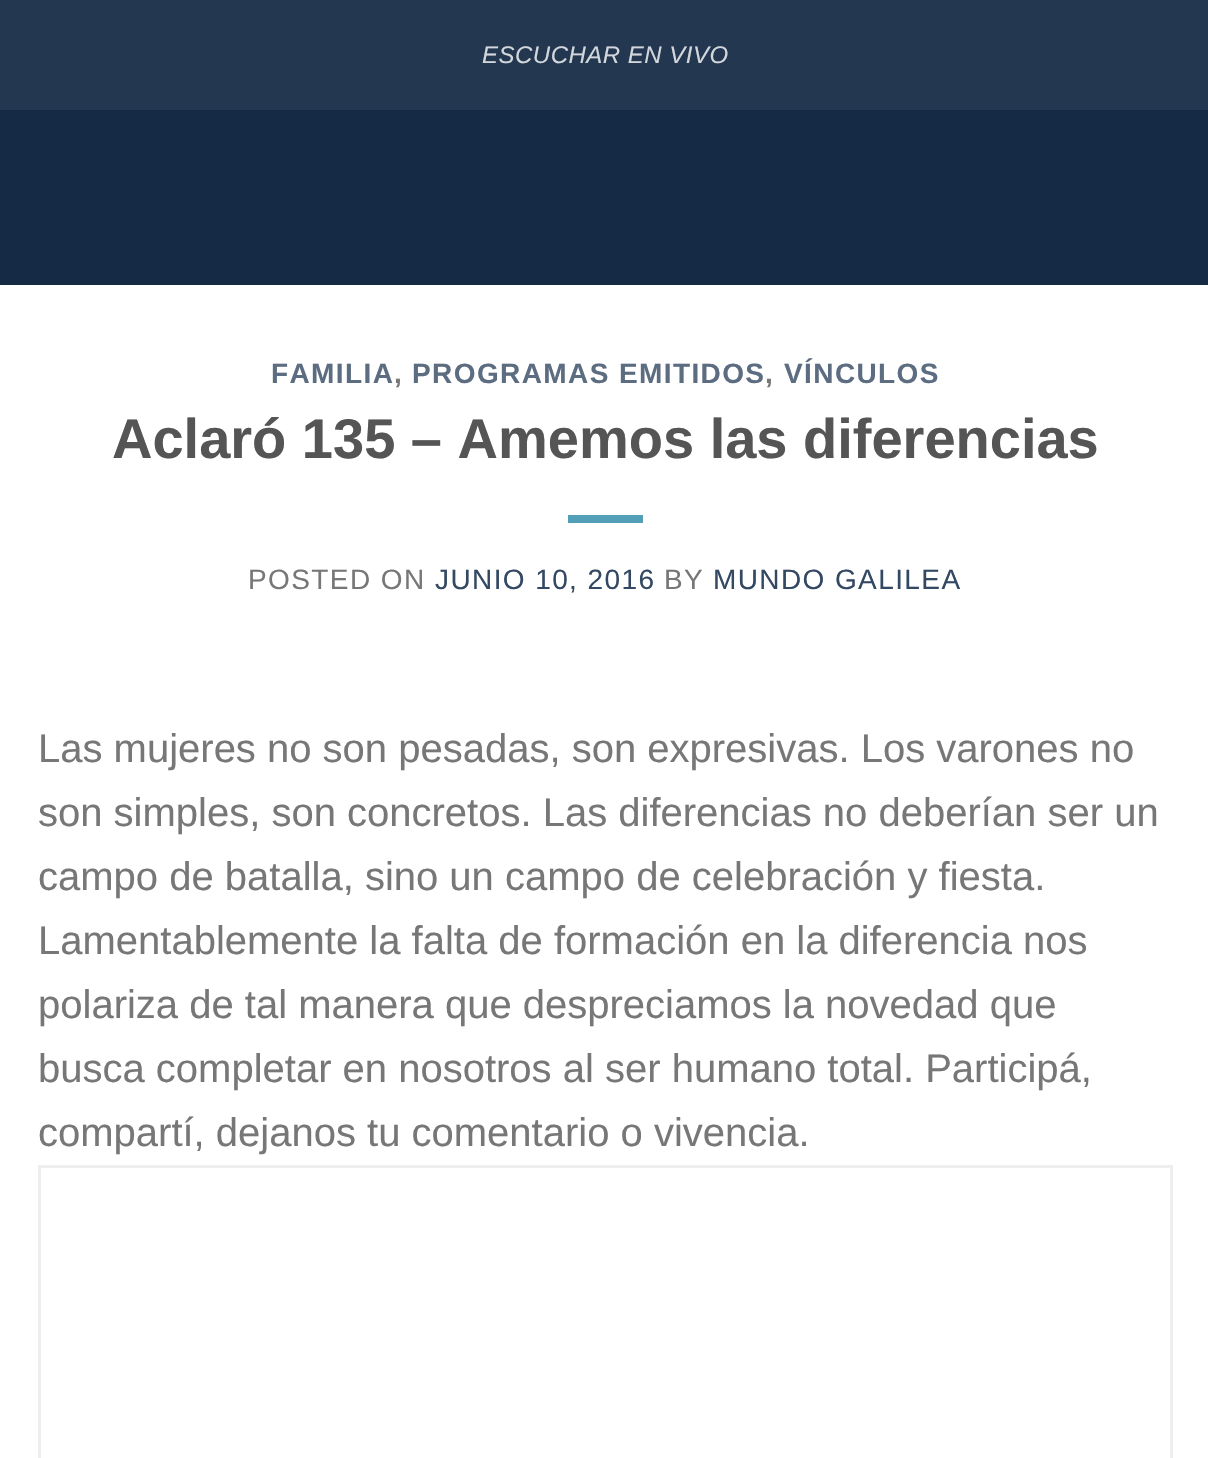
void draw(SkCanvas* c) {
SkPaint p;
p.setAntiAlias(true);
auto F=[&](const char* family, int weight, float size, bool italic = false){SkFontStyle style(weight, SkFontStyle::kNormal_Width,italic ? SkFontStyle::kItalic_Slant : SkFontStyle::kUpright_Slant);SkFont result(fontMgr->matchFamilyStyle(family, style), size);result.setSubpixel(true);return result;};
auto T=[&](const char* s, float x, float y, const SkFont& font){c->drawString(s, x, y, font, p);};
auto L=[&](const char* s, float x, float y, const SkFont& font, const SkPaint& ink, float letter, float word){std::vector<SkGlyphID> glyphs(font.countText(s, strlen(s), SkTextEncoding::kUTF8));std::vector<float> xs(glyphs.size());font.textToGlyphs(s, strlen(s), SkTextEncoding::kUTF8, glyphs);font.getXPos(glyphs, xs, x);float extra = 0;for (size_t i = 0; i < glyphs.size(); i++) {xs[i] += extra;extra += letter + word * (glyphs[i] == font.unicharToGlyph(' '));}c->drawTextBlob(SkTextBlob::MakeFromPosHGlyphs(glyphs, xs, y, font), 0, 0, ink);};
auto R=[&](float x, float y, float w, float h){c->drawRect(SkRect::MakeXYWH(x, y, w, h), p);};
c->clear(0xffffffff);
p.setColor(0xff233750);
R(0,0,1208,110);
auto f1 = F("Liberation Sans",400,24,true);
p.setColor(0xffd3d7dc);
L("ESCUCHAR EN VIVO",482,63,f1,p,.5,0);
p.setColor(0xff152a45);
R(0,110,1208,175);
auto f2 = F("Liberation Sans",700,28);
p.setColor(0xff5c6d81);
L("FAMILIA",271,383,f2,p,1.4,0);
p.setColor(0xff777777);
L(",",394,383,f2,p,1.4,0);
p.setColor(0xff5c6d81);
L("PROGRAMAS EMITIDOS",412,383,f2,p,1.4,0);
p.setColor(0xff777777);
L(",",765,383,f2,p,1.4,0);
p.setColor(0xff5c6d81);
L("VÍNCULOS",784,383,f2,p,1.4,0);
auto f3 = F("Liberation Sans",700,56);
p.setColor(0xff555555);
T("Aclaró 135 – Amemos las diferencias",112,458,f3);
p.setColor(0xff539fb7);
R(568,515,75,8);
auto f4 = F("Liberation Sans",400,28);
p.setColor(0xff777777);
L("POSTED ON",248,589,f4,p,1.4,0);
p.setColor(0xff334862);
L("JUNIO 10, 2016",435,589,f4,p,1.4,0);
p.setColor(0xff777777);
L("BY",664,589,f4,p,1.4,0);
p.setColor(0xff334862);
L("MUNDO GALILEA",713,589,f4,p,1.4,0);
auto f5 = F("Liberation Sans",400,40);
p.setColor(0xff777777);
T("Las mujeres no son pesadas, son expresivas. Los varones no",38,762,f5);
T("son simples, son concretos. Las diferencias no deberían ser un",38,826,f5);
T("campo de batalla, sino un campo de celebración y fiesta.",38,890,f5);
T("Lamentablemente la falta de formación en la diferencia nos",38,954,f5);
T("polariza de tal manera que despreciamos la novedad que",38,1018,f5);
T("busca completar en nosotros al ser humano total. Participá,",38,1082,f5);
T("compartí, dejanos tu comentario o vivencia.",38,1146,f5);
p.setStroke(true);
p.setStrokeWidth(3);
p.setColor(0xffeeeeee);
c->drawRect(SkRect::MakeXYWH(39.5,1166.5,1132,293),p);
}
